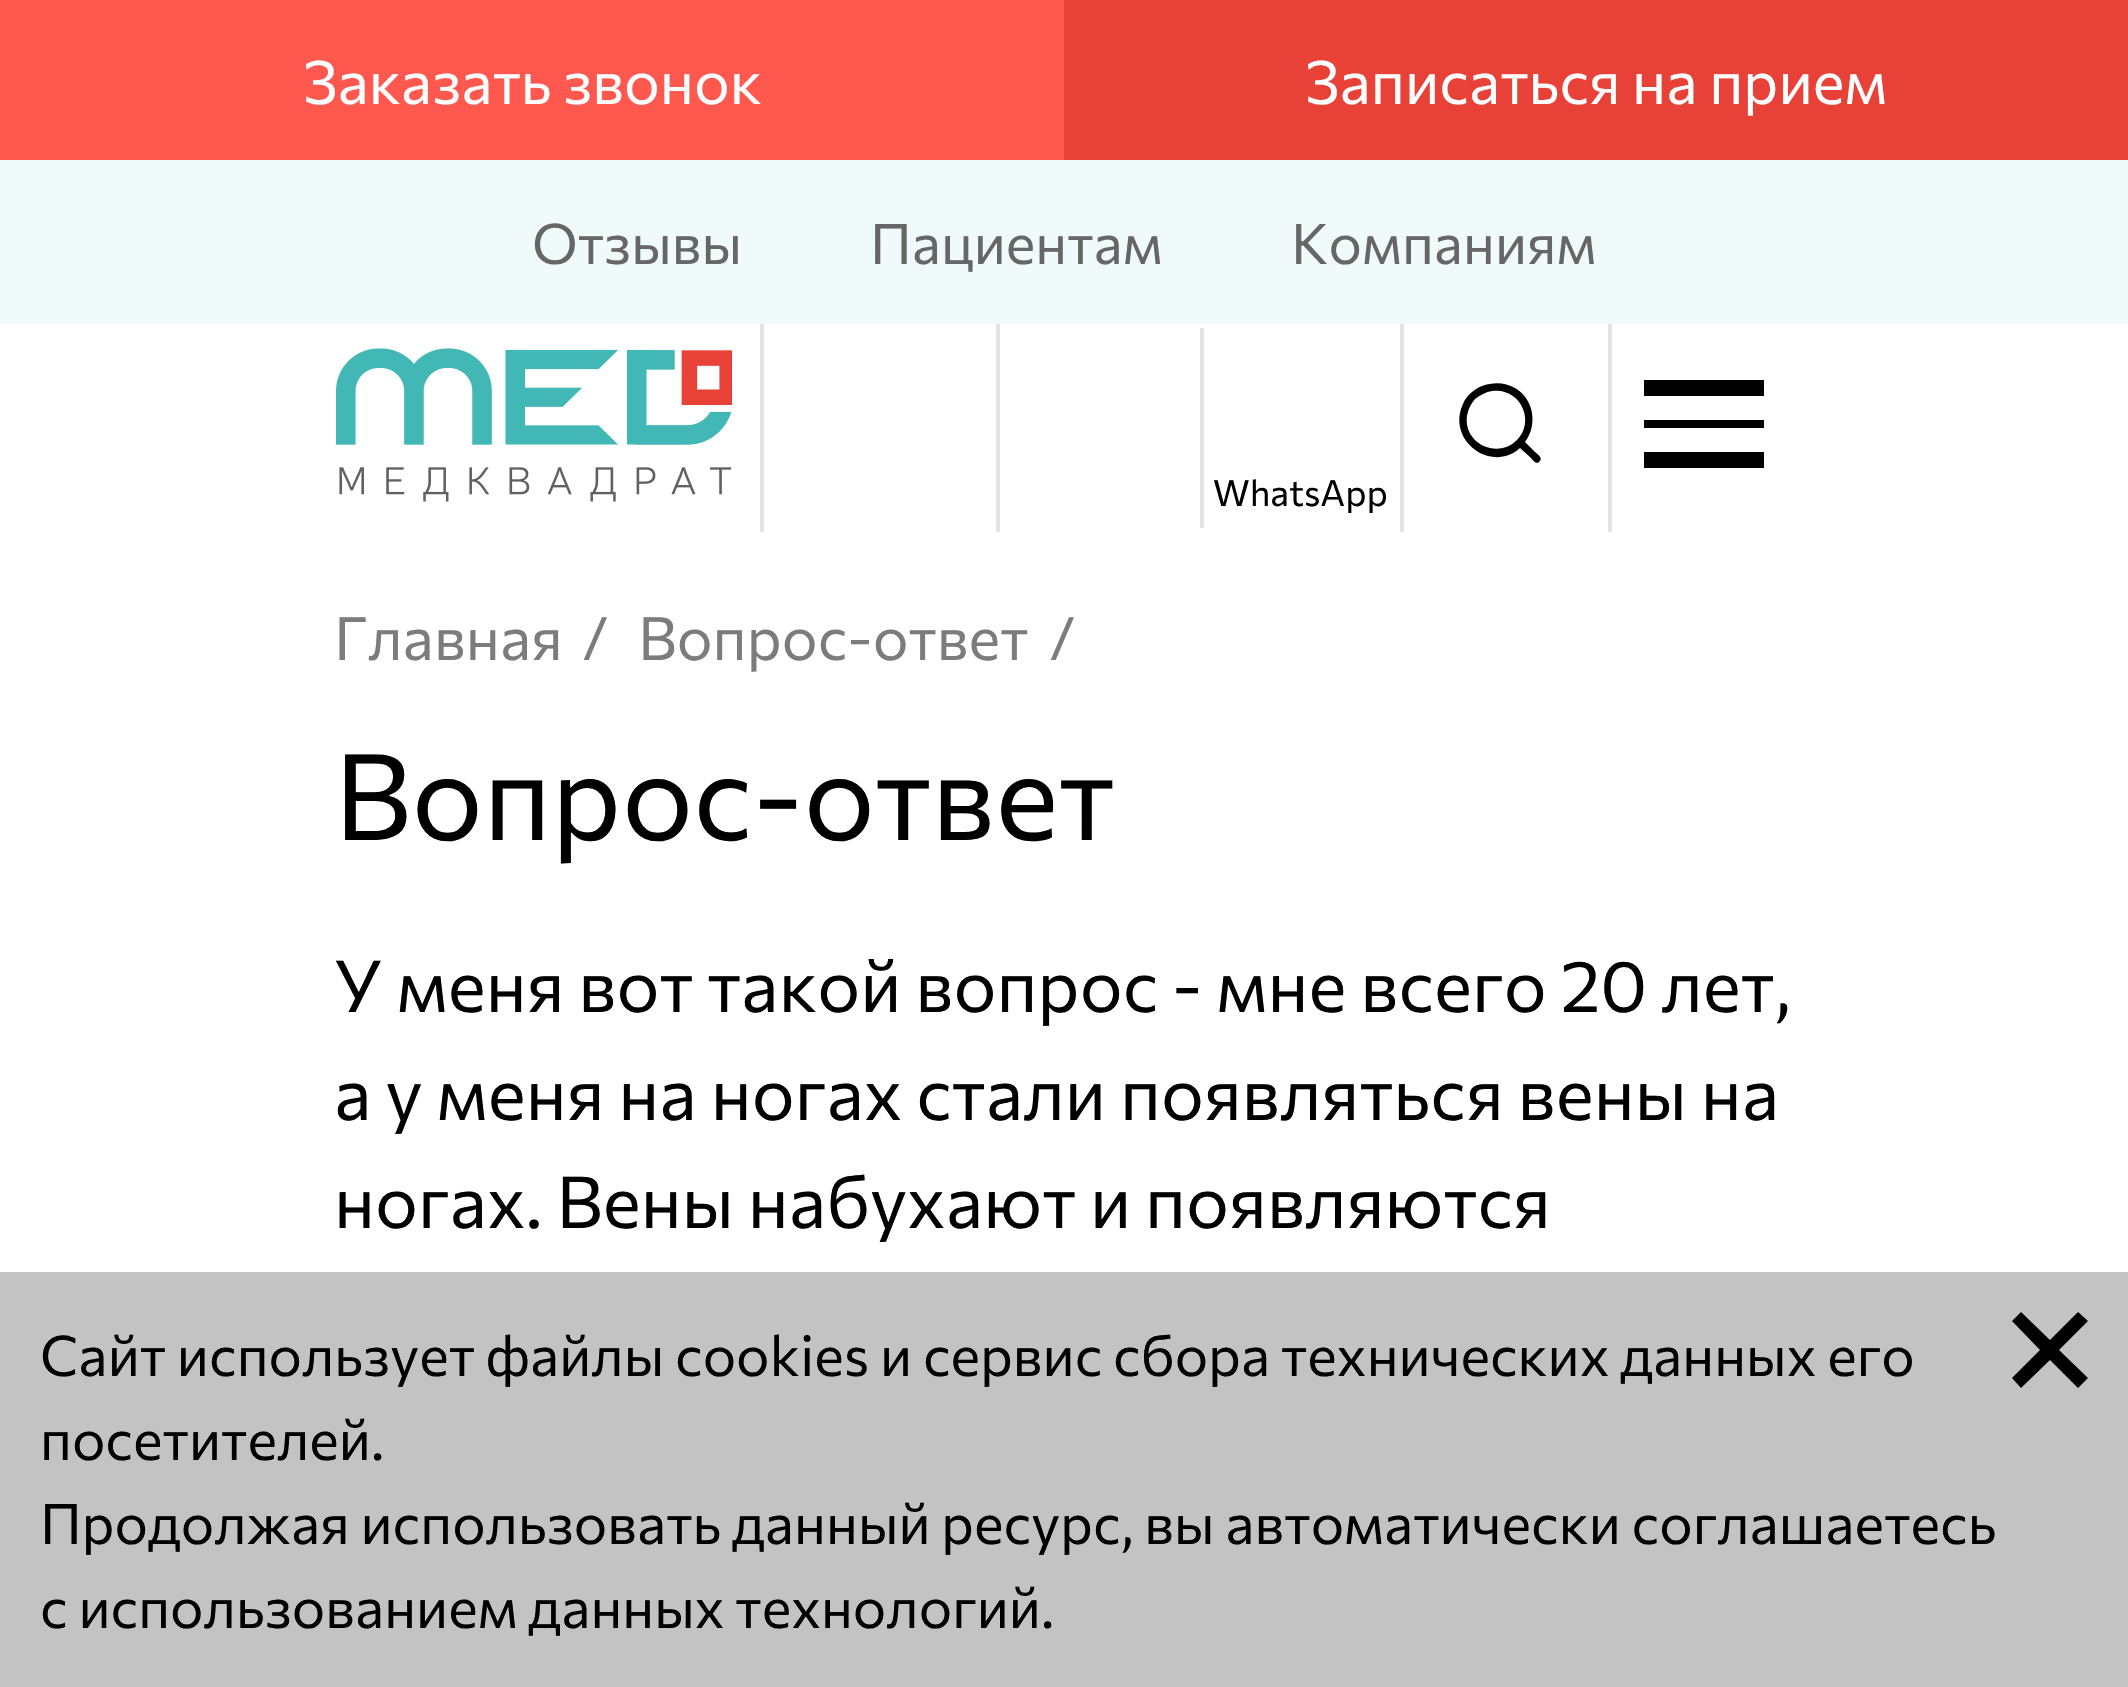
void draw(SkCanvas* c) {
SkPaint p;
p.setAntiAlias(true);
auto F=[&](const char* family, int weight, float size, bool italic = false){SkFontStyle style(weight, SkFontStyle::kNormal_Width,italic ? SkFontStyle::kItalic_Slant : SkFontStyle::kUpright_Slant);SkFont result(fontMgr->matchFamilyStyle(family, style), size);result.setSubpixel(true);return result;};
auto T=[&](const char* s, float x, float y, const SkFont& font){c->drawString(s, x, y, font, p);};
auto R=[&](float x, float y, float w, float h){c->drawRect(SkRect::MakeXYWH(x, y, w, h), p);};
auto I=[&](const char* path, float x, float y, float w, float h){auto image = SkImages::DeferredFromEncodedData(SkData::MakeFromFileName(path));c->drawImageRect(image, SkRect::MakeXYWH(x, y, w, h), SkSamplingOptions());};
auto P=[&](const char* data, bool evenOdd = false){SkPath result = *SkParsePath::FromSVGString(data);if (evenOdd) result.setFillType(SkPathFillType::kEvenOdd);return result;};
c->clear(0xffffffff);
p.setColor(0xffff594f);
R(0,0,1064,160);
auto f1 = F("Commissioner",400,60);
p.setColor(0xffffffff);
T("Заказать звонок",303,104,f1);
p.setColor(0xffe84137);
R(1064,0,1064,160);
p.setColor(0xffffffff);
T("Записаться на прием",1305,104,f1);
p.setColor(0xfff1fafa);
R(0,160,2128,164);
auto f2 = F("Commissioner",400,56);
p.setColor(0xff666666);
T("Отзывы",532,264,f2);
T("Пациентам",870,264,f2);
T("Компаниям",1291,264,f2);
I("1.png",336,348,396,154);
p.setColor(0xffe4e4e4);
R(760,324,4,208);
R(996,324,4,208);
R(1200,328,4,200);
auto f3 = F("Commissioner",400,36);
p.setColor(0xff000000);
T("WhatsApp",1213,506,f3);
p.setColor(0xffe4e4e4);
R(1400,324,4,208);
p.setColor(0xff000000);
c->drawPath(P("M1517 440c19-19 3-53-25-49c-6 1-12 4-17 8c-4 5-7 10-8 17c-4 27 30 44 50 24zm3 8c-29 26-74-8-57-44c3-8 11-15 19-18c11-4 23-4 33 2c19 11 23 37 10 54l10 10c2 2 9 6 4 10c-3 3-7-3-9-5z"),p);
p.setColor(0xffe4e4e4);
R(1608,324,4,208);
p.setColor(0xff000000);
R(1644,420,120,8);
R(1644,380,120,16);
R(1644,452,120,16);
p.setColor(0xff7c7c7c);
T("Главная",334,660,f1);
T("/",582,660,f1);
T("Вопрос-ответ",638,660,f1);
T("/",1049,660,f1);
auto f4 = F("Commissioner",400,120);
p.setColor(0xff000000);
T("Вопрос-ответ",334,840,f4);
auto f5 = F("Commissioner",400,72);
T("У меня вот такой вопрос - мне всего 20 лет,",334,1012,f5);
T("а у меня на ногах стали появляться вены на",334,1120,f5);
T("ногах. Вены набухают и появляются",334,1228,f5);
p.setColor(0xffc3c3c3);
R(0,1272,2128,415);
p.setColor(0xff000000);
T("Сайт использует файлы cookies и сервис сбора технических данных его",40,1376,f2);
c->drawPath(P("M2088 1378l-10 10l-28-28l-29 28l-9-10l28-28l-28-29l9-9l29 28l28-28l10 9l-29 29z",true),p);
T("посетителей.",40,1460,f2);
T("Продолжая использовать данный ресурс, вы автоматически соглашаетесь",40,1544,f2);
T("с использованием данных технологий.",40,1628,f2);
}
